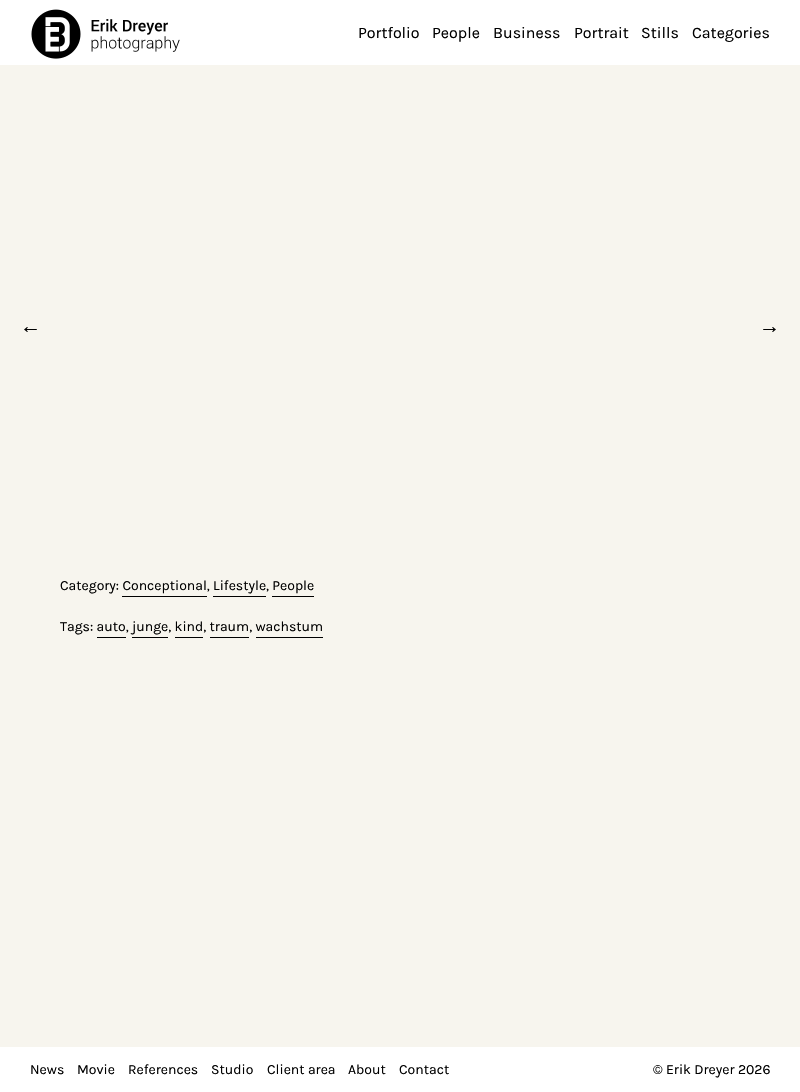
void draw(SkCanvas* c) {
SkPaint p;
p.setAntiAlias(true);
auto F=[&](const char* family, int weight, float size, bool italic = false){SkFontStyle style(weight, SkFontStyle::kNormal_Width,italic ? SkFontStyle::kItalic_Slant : SkFontStyle::kUpright_Slant);SkFont result(fontMgr->matchFamilyStyle(family, style), size);result.setSubpixel(true);return result;};
auto T=[&](const char* s, float x, float y, const SkFont& font){c->drawString(s, x, y, font, p);};
auto R=[&](float x, float y, float w, float h){c->drawRect(SkRect::MakeXYWH(x, y, w, h), p);};
auto I=[&](const char* path, float x, float y, float w, float h){auto image = SkImages::DeferredFromEncodedData(SkData::MakeFromFileName(path));c->drawImageRect(image, SkRect::MakeXYWH(x, y, w, h), SkSamplingOptions());};
c->clear(0xfff7f5ee);
p.setColor(0xffffffff);
R(0,0,800,65);
I("1.png",31,9,149,50);
auto f1 = F("Karla",400,16);
p.setColor(0xff000000);
T("Portfolio",358,38,f1);
T("People",432,38,f1);
T("Business",493,38,f1);
T("Portrait",574,38,f1);
T("Stills",641,38,f1);
T("Categories",692,38,f1);
auto f2 = F("Liberation Sans",400,21);
T("←",20,333,f2);
T("→",759,333,f2);
auto f3 = F("Karla",400,14);
T("Category: Conceptional, Lifestyle, People",60,590,f3);
R(122,596,85,1);
R(213,596,53,1);
R(272,596,42,1);
T("Tags: auto, junge, kind, traum, wachstum",60,631,f3);
R(97,637,29,1);
R(132,637,36,1);
R(175,637,28,1);
R(210,637,39,1);
R(256,637,67,1);
p.setColor(0xffffffff);
R(0,1047,800,45);
p.setColor(0xff000000);
T("News",30,1074,f3);
T("Movie",77,1074,f3);
T("References",128,1074,f3);
T("Studio",211,1074,f3);
T("Client area",267,1074,f3);
T("About",348,1074,f3);
T("Contact",399,1074,f3);
T("© Erik Dreyer 2026",653,1074,f3);
}
